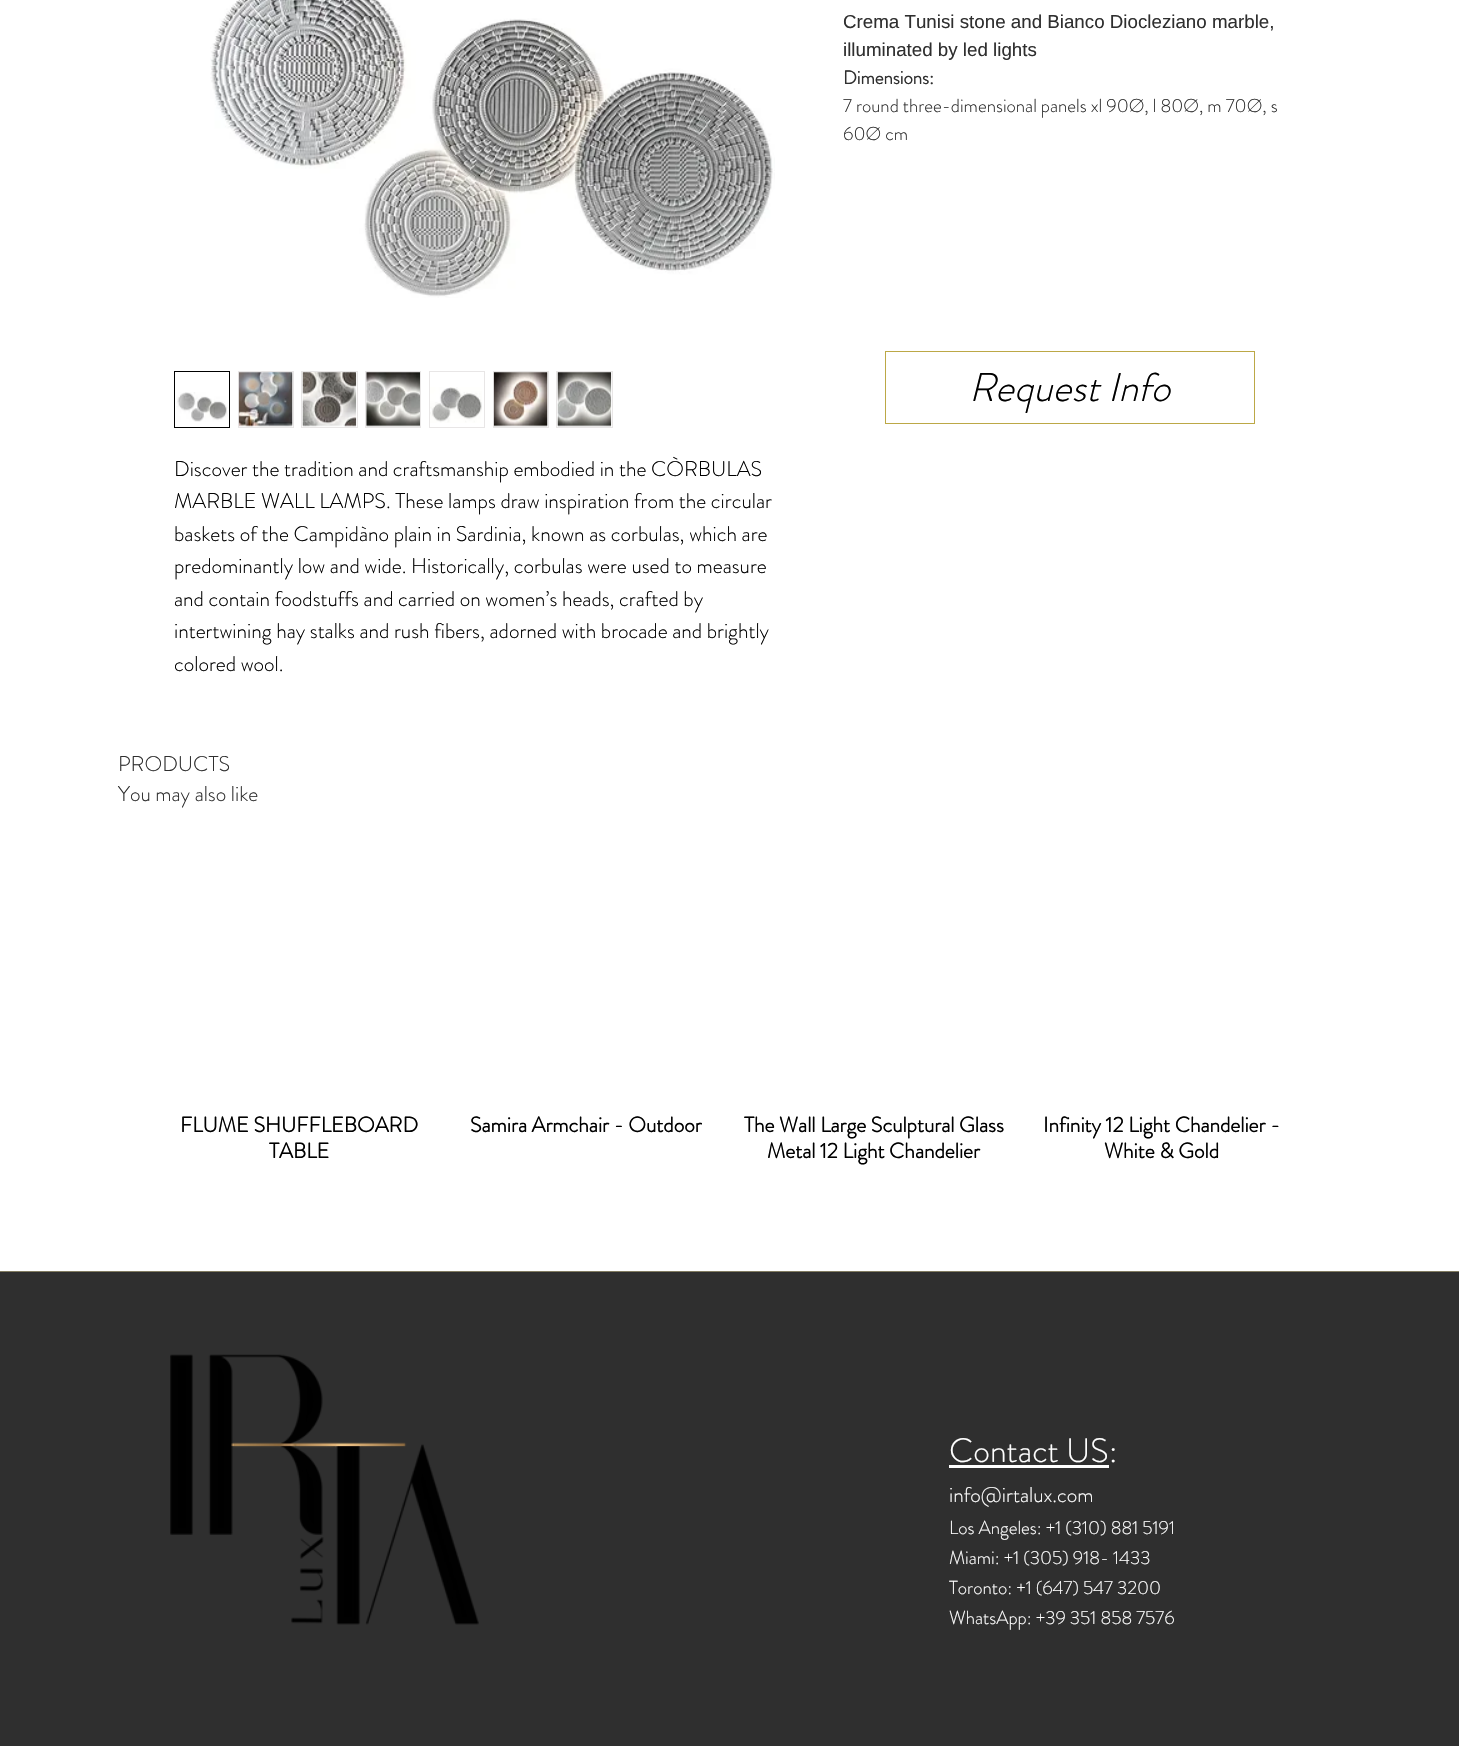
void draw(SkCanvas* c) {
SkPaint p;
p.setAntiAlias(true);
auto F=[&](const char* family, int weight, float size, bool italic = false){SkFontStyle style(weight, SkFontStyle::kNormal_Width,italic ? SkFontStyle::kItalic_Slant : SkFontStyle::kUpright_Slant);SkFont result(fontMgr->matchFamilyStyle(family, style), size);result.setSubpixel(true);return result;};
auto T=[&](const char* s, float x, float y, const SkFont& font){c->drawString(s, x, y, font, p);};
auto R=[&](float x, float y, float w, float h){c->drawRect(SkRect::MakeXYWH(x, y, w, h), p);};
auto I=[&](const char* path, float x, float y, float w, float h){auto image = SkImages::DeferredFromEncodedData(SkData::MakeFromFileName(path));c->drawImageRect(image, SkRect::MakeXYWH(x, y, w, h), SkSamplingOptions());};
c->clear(0xffffffff);
auto f1 = F("Liberation Sans",400,18.75);
p.setColor(0xff2f2f2f);
T("Crema Tunisi stone and Bianco Diocleziano marble,",843,28,f1);
T("illuminated by led lights",843,56,f1);
auto f2 = F("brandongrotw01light",700,18.75);
T("Dimensions:",843,84,f2);
auto f3 = F("brandongrotw01light",300,18.75);
T("7 round three-dimensional panels xl 90Ø, l 80Ø, m 70Ø, s",843,112,f3);
T("60Ø cm",843,140,f3);
I("1.png",210,0,565,298);
p.setStroke(true);
p.setStrokeWidth(1);
p.setColor(0xff000000);
c->drawRect(SkRect::MakeXYWH(174.5,371.5,55,56),p);
I("2.png",176,392,52,30);
p.setColor(0xffe8e6e6);
c->drawRect(SkRect::MakeXYWH(238.5,371.5,55,56),p);
I("3.png",238,372,55,55);
c->drawRect(SkRect::MakeXYWH(301.5,371.5,56,56),p);
I("4.png",302,372,55,55);
c->drawRect(SkRect::MakeXYWH(365.5,371.5,55,56),p);
I("5.png",366,372,54,55);
c->drawRect(SkRect::MakeXYWH(429.5,371.5,55,56),p);
I("6.png",430,387,52,36);
c->drawRect(SkRect::MakeXYWH(493.5,371.5,55,56),p);
I("7.png",493,372,55,55);
c->drawRect(SkRect::MakeXYWH(556.5,371.5,56,56),p);
I("8.png",557,372,55,55);
auto f4 = F("brandongrotw01light",300,21.25);
p.setStroke(false);
p.setColor(0xff000000);
T("Discover the tradition and craftsmanship embodied in the CÒRBULAS",174,476,f4);
T("MARBLE WALL LAMPS. These lamps draw inspiration from the circular",174,508,f4);
T("baskets of the Campidàno plain in Sardinia, known as corbulas, which are",174,541,f4);
T("predominantly low and wide. Historically, corbulas were used to measure",174,573,f4);
T("and contain foodstuffs and carried on women’s heads, crafted by",174,606,f4);
T("intertwining hay stalks and rush fibers, adorned with brocade and brightly",174,638,f4);
T("colored wool.",174,671,f4);
p.setStroke(true);
p.setColor(0xffbca846);
c->drawRect(SkRect::MakeXYWH(885.5,351.5,369,72),p);
auto f5 = F("brandongrotw01light",300,40,true);
p.setStroke(false);
p.setColor(0xff000000);
T("Request Info",969,401,f5);
p.setColor(0xff2f2f2f);
T("PRODUCTS",118,771,f4);
T("You may also like",118,801,f4);
auto f6 = F("brandongrotw01light",700,21.25);
p.setColor(0xff000000);
T("FLUME SHUFFLEBOARD",180,1132,f6);
T("TABLE",269,1158,f6);
T("Samira Armchair - Outdoor",470,1132,f6);
T("The Wall Large Sculptural Glass",744,1132,f6);
T("Metal 12 Light Chandelier",767,1158,f6);
T("Infinity 12 Light Chandelier -",1043,1132,f6);
T("White & Gold",1104,1158,f6);
p.setColor(0xff2f2f2f);
R(0,1272,1459,474);
p.setColor(0xff817b60);
R(0,1271,1459,1);
I("9.png",170,1354,309,271);
auto f7 = F("brandongrotw01light",300,33.75);
p.setColor(0xffffffff);
T("Contact US:",949,1462,f7);
R(949,1465,160,3);
T("info@irtalux.com",949,1502,f4);
T("Los Angeles: +1 (310) 881 5191",949,1534,f3);
T("Miami: +1 (305) 918- 1433",949,1564,f3);
T("Toronto: +1 (647) 547 3200",949,1594,f3);
T("WhatsApp: +39 351 858 7576",949,1624,f3);
}
